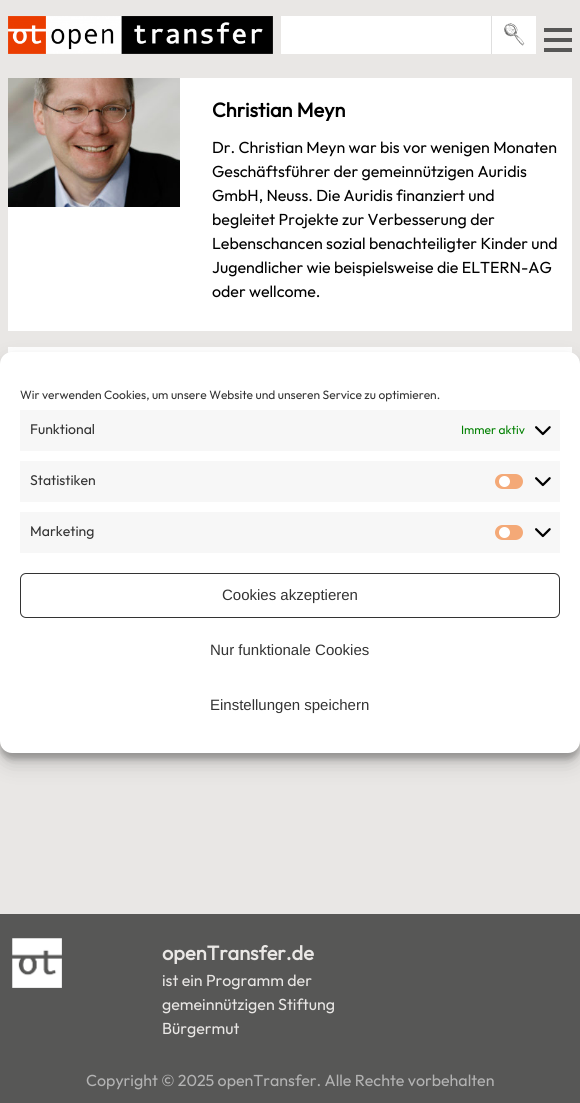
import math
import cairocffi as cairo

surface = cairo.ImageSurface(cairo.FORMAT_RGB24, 580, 1103)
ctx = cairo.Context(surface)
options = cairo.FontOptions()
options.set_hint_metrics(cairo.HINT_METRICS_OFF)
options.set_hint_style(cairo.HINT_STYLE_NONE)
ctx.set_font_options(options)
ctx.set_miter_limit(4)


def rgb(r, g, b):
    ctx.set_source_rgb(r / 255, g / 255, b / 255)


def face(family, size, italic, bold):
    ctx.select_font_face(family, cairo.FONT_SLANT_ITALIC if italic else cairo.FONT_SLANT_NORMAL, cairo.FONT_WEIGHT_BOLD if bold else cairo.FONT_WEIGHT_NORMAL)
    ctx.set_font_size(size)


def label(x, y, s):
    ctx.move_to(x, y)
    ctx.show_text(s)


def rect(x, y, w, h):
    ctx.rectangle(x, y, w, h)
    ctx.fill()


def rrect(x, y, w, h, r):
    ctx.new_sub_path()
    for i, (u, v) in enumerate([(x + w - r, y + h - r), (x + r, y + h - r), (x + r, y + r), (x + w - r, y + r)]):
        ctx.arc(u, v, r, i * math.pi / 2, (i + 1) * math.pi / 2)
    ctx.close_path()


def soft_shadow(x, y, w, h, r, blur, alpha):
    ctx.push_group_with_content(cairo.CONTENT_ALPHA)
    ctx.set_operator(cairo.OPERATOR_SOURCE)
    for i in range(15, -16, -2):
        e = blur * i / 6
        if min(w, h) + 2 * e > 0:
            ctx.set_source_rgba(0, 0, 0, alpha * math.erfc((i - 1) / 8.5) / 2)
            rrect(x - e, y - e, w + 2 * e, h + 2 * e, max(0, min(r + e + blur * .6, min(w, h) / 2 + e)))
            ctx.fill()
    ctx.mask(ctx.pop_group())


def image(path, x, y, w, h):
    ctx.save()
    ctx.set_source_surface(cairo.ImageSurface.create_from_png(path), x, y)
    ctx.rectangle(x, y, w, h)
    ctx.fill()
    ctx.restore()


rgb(233, 231, 229)
ctx.paint()
image('image0.png', 8, 16, 265, 38)
rgb(255, 255, 255)
rect(281, 16, 255, 38)
rgb(223, 223, 223)
rect(491, 16, 1, 38)
image('image1.png', 504, 23, 21, 23)
rgb(87, 87, 86)
rect(544, 28, 28, 4)
rect(544, 38, 28, 4)
rect(544, 48, 28, 4)
rgb(255, 255, 255)
rect(8, 78, 564, 253)
image('image2.png', 8, 78, 172, 129)
face('Outfit', 20, 0, 1)
rgb(0, 0, 0)
label(212, 117, 'Christian Meyn')
face('Outfit Thin', 16, 0, 0)
label(212, 153, 'Dr. Christian Meyn war bis vor wenigen Monaten')
label(212, 177, 'Geschäftsführer der gemeinnützigen Auridis')
label(212, 201, 'GmbH, Neuss. Die Auridis finanziert und')
label(212, 225, 'begleitet Projekte zur Verbesserung der')
label(212, 249, 'Lebenschancen sozial benachteiligter Kinder und')
label(212, 273, 'Jugendlicher wie beispielsweise die ELTERN-AG')
label(212, 297, 'oder wellcome.')
rgb(255, 255, 255)
rect(8, 347, 564, 6)
rgb(87, 87, 86)
rect(0, 914, 580, 189)
image('image3.png', 12, 938, 50, 50)
face('Outfit', 20, 0, 1)
rgb(233, 231, 229)
label(162, 960, 'openTransfer.de')
face('Outfit Thin', 16, 0, 0)
label(162, 986, 'ist ein Programm der')
label(162, 1010, 'gemeinnützigen Stiftung')
label(162, 1034, 'Bürgermut')
rgb(179, 179, 179)
label(86, 1086, 'Copyright © 2025 openTransfer. Alle Rechte vorbehalten')
rgb(0, 0, 0)
soft_shadow(0, 358, 580, 401, 12, 3, 0.23)
soft_shadow(0, 362, 580, 401, 12, 10, 0.19)
rgb(255, 255, 255)
rrect(0, 352, 580, 401, 12)
ctx.fill()
face('Outfit Thin', 12, 0, 0)
rgb(51, 51, 51)
label(20, 399, 'Wir verwenden Cookies, um unsere Website und unseren Service zu optimieren.')
rgb(247, 247, 247)
rect(20, 410, 540, 41)
face('Outfit Thin', 14, 0, 0)
rgb(51, 51, 51)
label(30, 434, 'Funktional')
face('Outfit Thin', 12, 0, 0)
rgb(0, 128, 0)
label(461, 434, 'Immer aktiv')
image('image4.png', 535, 426, 16, 10)
rgb(247, 247, 247)
rect(20, 461, 540, 41)
face('Outfit Thin', 14, 0, 0)
rgb(51, 51, 51)
label(30, 485, 'Statistiken')
rgb(244, 169, 119)
rrect(495, 474, 28, 15, 7.5)
ctx.fill()
rgb(255, 255, 255)
ctx.arc(504.5, 481.5, 5.5, 0, 2 * math.pi)
ctx.fill()
image('image4.png', 535, 477, 16, 10)
rgb(247, 247, 247)
rect(20, 512, 540, 41)
rgb(51, 51, 51)
label(30, 536, 'Marketing')
rgb(244, 169, 119)
rrect(495, 525, 28, 15, 7.5)
ctx.fill()
rgb(255, 255, 255)
ctx.arc(504.5, 532.5, 5.5, 0, 2 * math.pi)
ctx.fill()
image('image4.png', 535, 528, 16, 10)
rrect(20.5, 573.5, 539, 44, 5.5)
rgb(51, 51, 51)
ctx.set_line_width(1)
ctx.stroke()
face('Liberation Sans', 15, 0, 0)
label(222, 600, 'Cookies akzeptieren')
label(210, 655, 'Nur funktionale Cookies')
label(210, 710, 'Einstellungen speichern')
surface.write_to_png('render.png')
